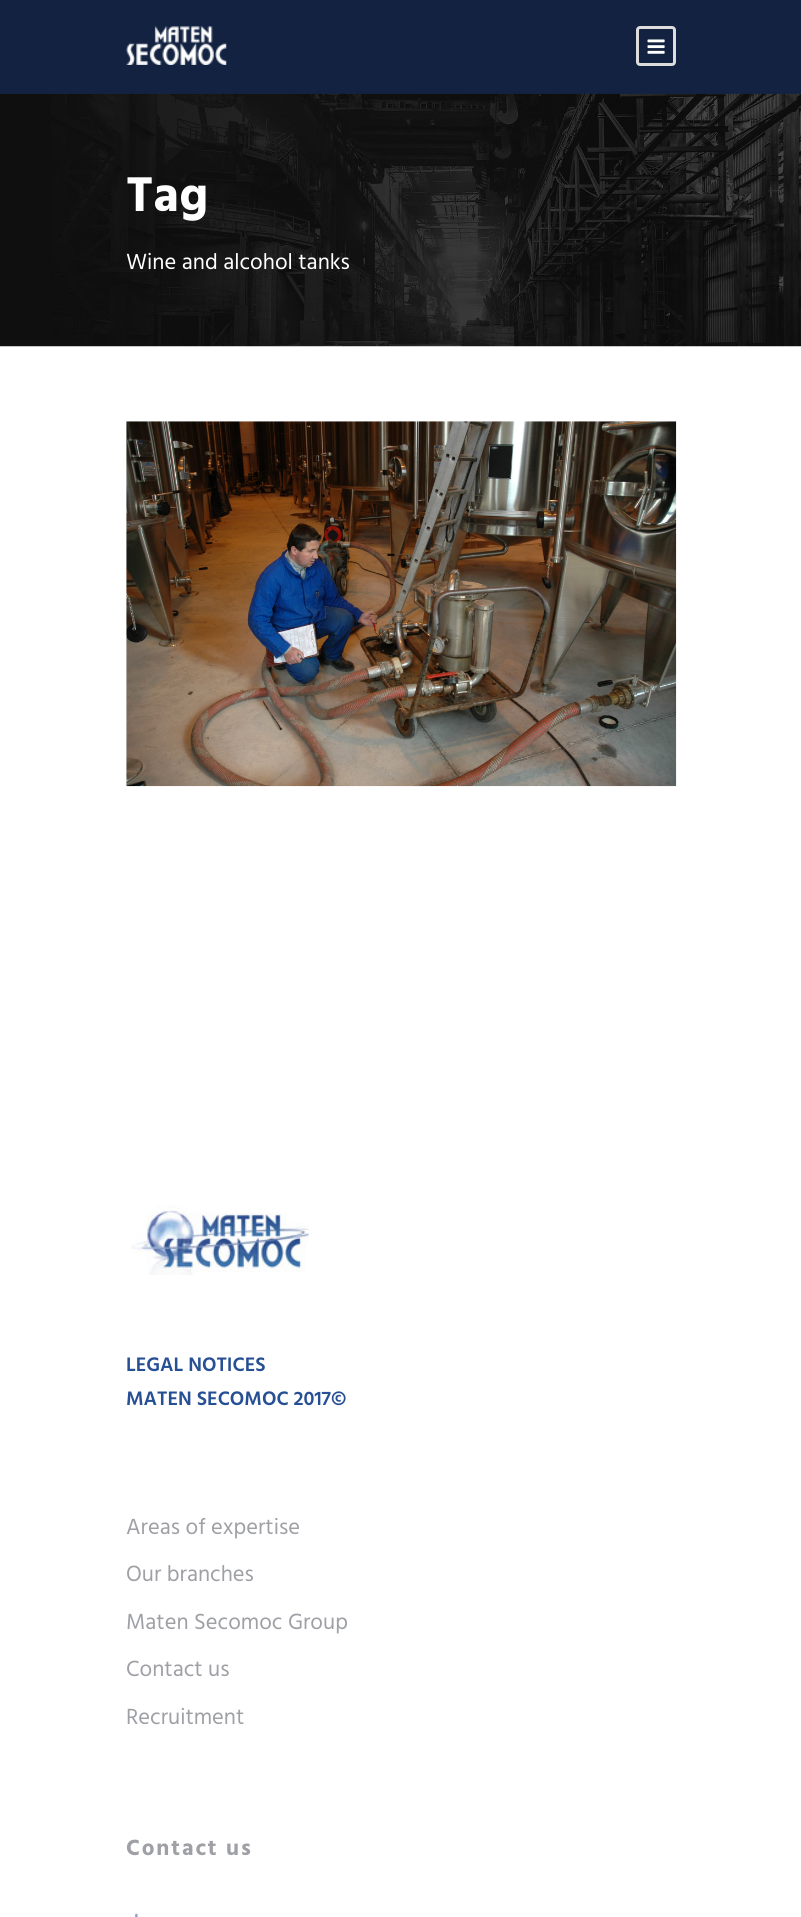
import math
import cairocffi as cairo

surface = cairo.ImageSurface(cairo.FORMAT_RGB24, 801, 1917)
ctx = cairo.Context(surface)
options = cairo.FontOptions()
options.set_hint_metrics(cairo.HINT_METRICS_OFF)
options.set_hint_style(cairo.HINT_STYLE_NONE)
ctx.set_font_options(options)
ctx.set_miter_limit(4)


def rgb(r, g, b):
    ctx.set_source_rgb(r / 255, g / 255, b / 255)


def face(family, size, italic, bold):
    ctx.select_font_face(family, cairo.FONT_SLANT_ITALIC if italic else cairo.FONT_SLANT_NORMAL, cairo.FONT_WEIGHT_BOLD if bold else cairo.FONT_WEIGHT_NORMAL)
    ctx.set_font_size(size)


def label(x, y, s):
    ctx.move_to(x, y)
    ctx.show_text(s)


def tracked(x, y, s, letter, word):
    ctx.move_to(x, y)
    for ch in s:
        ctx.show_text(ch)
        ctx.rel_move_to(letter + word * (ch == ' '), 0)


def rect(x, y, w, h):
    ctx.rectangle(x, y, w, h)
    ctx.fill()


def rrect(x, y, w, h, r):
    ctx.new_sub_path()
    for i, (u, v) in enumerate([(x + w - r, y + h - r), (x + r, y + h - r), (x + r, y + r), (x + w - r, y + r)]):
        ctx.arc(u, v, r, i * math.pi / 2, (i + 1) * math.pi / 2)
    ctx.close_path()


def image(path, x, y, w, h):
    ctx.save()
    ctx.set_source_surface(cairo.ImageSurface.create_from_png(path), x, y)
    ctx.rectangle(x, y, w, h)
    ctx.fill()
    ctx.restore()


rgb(18, 34, 64)
ctx.paint()
image('image0.png', 126, 26, 101, 39)
rrect(637.5, 27.5, 37, 37, 2.5)
rgb(221, 221, 221)
ctx.set_line_width(3)
ctx.stroke()
image('image1.png', 647, 39, 18, 15)
rgb(255, 255, 255)
rect(0, 346, 801, 1571)
image('image2.png', 0, 93, 801, 254)
face('Hind', 50, 0, 1)
label(126, 211, 'Tag')
face('Hind', 22.5, 0, 0)
label(126, 269, 'Wine and alcohol tanks')
image('image3.png', 126, 421, 551, 366)
image('image4.png', 131, 1205, 178, 70)
face('Hind SemiBold', 20, 0, 0)
rgb(39, 79, 148)
label(126, 1371, 'LEGAL NOTICES')
label(126, 1405, 'MATEN SECOMOC 2017©')
face('Hind', 22.5, 0, 0)
rgb(159, 160, 165)
label(126, 1534, 'Areas of expertise')
label(126, 1581, 'Our branches')
label(126, 1629, 'Maten Secomoc Group')
label(126, 1676, 'Contact us')
label(126, 1724, 'Recruitment')
face('Hind', 22.5, 0, 1)
tracked(126, 1855, 'Contact us', 1.9, 0)
image('image5.png', 134, 1913, 4, 4)
surface.write_to_png('render.png')
